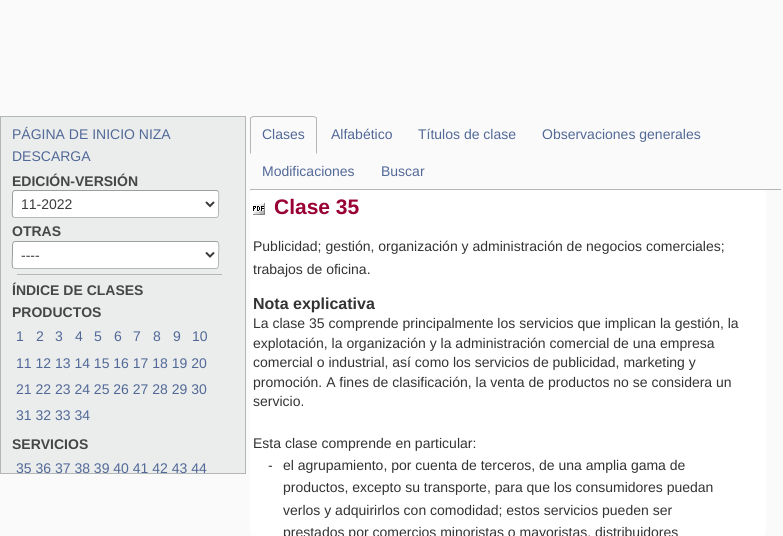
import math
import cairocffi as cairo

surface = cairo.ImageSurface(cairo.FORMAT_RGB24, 783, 536)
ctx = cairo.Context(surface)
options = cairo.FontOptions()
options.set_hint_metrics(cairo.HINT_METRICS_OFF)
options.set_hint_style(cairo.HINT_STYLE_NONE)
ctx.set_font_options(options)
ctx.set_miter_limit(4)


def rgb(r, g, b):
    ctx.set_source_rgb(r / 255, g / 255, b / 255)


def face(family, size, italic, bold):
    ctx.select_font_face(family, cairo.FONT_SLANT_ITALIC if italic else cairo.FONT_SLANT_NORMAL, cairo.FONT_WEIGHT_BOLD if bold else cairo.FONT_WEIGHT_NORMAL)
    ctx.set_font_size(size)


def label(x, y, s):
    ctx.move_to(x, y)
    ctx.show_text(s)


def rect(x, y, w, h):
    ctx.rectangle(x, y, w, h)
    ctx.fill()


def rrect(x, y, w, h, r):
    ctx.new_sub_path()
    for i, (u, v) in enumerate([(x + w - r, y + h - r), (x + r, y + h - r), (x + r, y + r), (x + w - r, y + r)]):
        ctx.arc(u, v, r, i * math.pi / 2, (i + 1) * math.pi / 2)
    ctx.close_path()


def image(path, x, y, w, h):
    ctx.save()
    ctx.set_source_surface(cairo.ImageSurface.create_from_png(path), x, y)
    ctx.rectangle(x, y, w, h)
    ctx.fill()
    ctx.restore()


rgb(250, 250, 250)
ctx.paint()
rgb(234, 237, 236)
ctx.rectangle(0.5, 116.5, 245, 357)
ctx.fill_preserve()
rgb(180, 183, 182)
ctx.set_line_width(1)
ctx.stroke()
face('Liberation Sans', 14, 0, 0)
rgb(82, 104, 151)
label(12, 139, 'PÁGINA DE INICIO NIZA')
label(12, 161, 'DESCARGA')
face('Liberation Sans', 14, 0, 1)
rgb(70, 70, 70)
label(12, 186, 'EDICIÓN-VERSIÓN')
rgb(255, 255, 255)
rrect(12, 190, 207, 28, 3)
ctx.fill()
ctx.new_path()
ctx.move_to(218, 191)
ctx.curve_to(219.5, 193, 218.5, 201.5, 218.5, 204)
ctx.line_to(218.5, 211.5)
ctx.curve_to(218.5, 213, 219, 217.5, 216, 217.5)
ctx.line_to(15, 217.5)
ctx.line_to(13, 217)
rgb(180, 183, 182)
ctx.stroke()
ctx.new_path()
ctx.move_to(13, 217)
ctx.curve_to(11.5, 215, 12.5, 206.5, 12.5, 204)
ctx.line_to(12.5, 196.5)
ctx.curve_to(12.5, 195, 12, 190.5, 15, 190.5)
ctx.line_to(216, 190.5)
ctx.line_to(218, 191)
rgb(154, 158, 157)
ctx.stroke()
ctx.new_path()
ctx.move_to(206, 202)
ctx.line_to(210, 206)
ctx.line_to(214, 202)
rgb(59, 59, 59)
ctx.set_line_width(2)
ctx.stroke()
face('Liberation Sans', 14, 0, 0)
label(21, 209, '11-2022')
face('Liberation Sans', 14, 0, 1)
rgb(70, 70, 70)
label(12, 236, 'OTRAS')
rgb(255, 255, 255)
rrect(12, 241, 207, 28, 3)
ctx.fill()
ctx.new_path()
ctx.move_to(218, 242)
ctx.curve_to(219.5, 244, 218.5, 252.5, 218.5, 255)
ctx.line_to(218.5, 262.5)
ctx.curve_to(218.5, 264, 219, 268.5, 216, 268.5)
ctx.line_to(15, 268.5)
ctx.line_to(13, 268)
rgb(180, 183, 182)
ctx.set_line_width(1)
ctx.stroke()
ctx.new_path()
ctx.move_to(13, 268)
ctx.curve_to(11.5, 266, 12.5, 257.5, 12.5, 255)
ctx.line_to(12.5, 247.5)
ctx.curve_to(12.5, 246, 12, 241.5, 15, 241.5)
ctx.line_to(216, 241.5)
ctx.line_to(218, 242)
rgb(154, 158, 157)
ctx.stroke()
ctx.new_path()
ctx.move_to(206, 252.5)
ctx.line_to(210, 256.5)
ctx.line_to(214, 252.5)
rgb(59, 59, 59)
ctx.set_line_width(2)
ctx.stroke()
face('Liberation Sans', 14, 0, 0)
label(21, 260, '----')
rgb(180, 183, 182)
rect(17, 274, 205, 1)
face('Liberation Sans', 14, 0, 1)
rgb(70, 70, 70)
label(12, 295, 'ÍNDICE DE CLASES')
label(12, 317, 'PRODUCTOS')
face('Liberation Sans', 14, 0, 0)
rgb(82, 104, 151)
label(16, 341, '1')
label(36, 341, '2')
label(55, 341, '3')
label(75, 341, '4')
label(94, 341, '5')
label(114, 341, '6')
label(133, 341, '7')
label(153, 341, '8')
label(173, 341, '9')
label(192, 341, '10')
label(16, 368, '11 12 13 14 15 16 17 18 19 20')
label(16, 394, '21 22 23 24 25 26 27 28 29 30')
label(16, 420, '31 32 33 34')
face('Liberation Sans', 14, 0, 1)
rgb(70, 70, 70)
label(12, 449, 'SERVICIOS')
face('Liberation Sans', 14, 0, 0)
rgb(82, 104, 151)
label(16, 473, '35 36 37 38 39 40 41 42 43 44')
rgb(180, 183, 182)
rect(250, 189, 531, 1)
ctx.new_path()
ctx.move_to(253, 116)
ctx.line_to(251, 117)
ctx.line_to(252, 118)
ctx.line_to(253, 117)
ctx.line_to(314, 117)
ctx.line_to(315, 118)
ctx.line_to(316, 117)
ctx.line_to(314, 116)
ctx.close_path()
ctx.fill()
ctx.new_path()
ctx.move_to(317, 154)
ctx.line_to(317, 119)
ctx.curve_to(317, 118, 317, 117, 316, 117)
ctx.line_to(315.5, 117.5)
ctx.line_to(316, 119)
ctx.line_to(316, 153)
ctx.close_path()
ctx.fill()
ctx.new_path()
ctx.move_to(250, 154)
ctx.line_to(251, 153)
ctx.line_to(251, 119)
ctx.line_to(251.5, 117.5)
ctx.line_to(251, 117)
ctx.curve_to(250, 117, 250, 118, 250, 119)
ctx.close_path()
ctx.fill()
rgb(82, 104, 151)
label(262, 139, 'Clases')
label(331, 139, 'Alfabético')
label(418, 139, 'Títulos de clase')
label(542, 139, 'Observaciones generales')
label(262, 176, 'Modificaciones')
label(381, 176, 'Buscar')
rgb(255, 255, 255)
rrect(250, 190, 516, 346, 4)
ctx.fill()
image('image0.png', 253, 203, 12, 12)
face('Liberation Sans', 21, 0, 1)
rgb(153, 0, 51)
label(274, 214, 'Clase 35')
face('Liberation Sans', 14, 0, 0)
rgb(51, 51, 51)
label(253, 251, 'Publicidad; gestión, organización y administración de negocios comerciales;')
label(253, 274, 'trabajos de oficina.')
face('Liberation Sans', 16, 0, 1)
label(253, 309, 'Nota explicativa')
face('Liberation Sans', 14, 0, 0)
label(253, 328, 'La clase 35 comprende principalmente los servicios que implican la gestión, la')
label(253, 348, 'explotación, la organización y la administración comercial de una empresa')
label(253, 367, 'comercial o industrial, así como los servicios de publicidad, marketing y')
label(253, 387, 'promoción. A fines de clasificación, la venta de productos no se considera un')
label(253, 406, 'servicio.')
label(253, 448, 'Esta clase comprende en particular:')
label(268, 470, '-')
label(283, 470, 'el agrupamiento, por cuenta de terceros, de una amplia gama de')
label(283, 492, 'productos, excepto su transporte, para que los consumidores puedan')
label(283, 515, 'verlos y adquirirlos con comodidad; estos servicios pueden ser')
label(283, 537, 'prestados por comercios minoristas o mayoristas, distribuidores')
surface.write_to_png('render.png')
